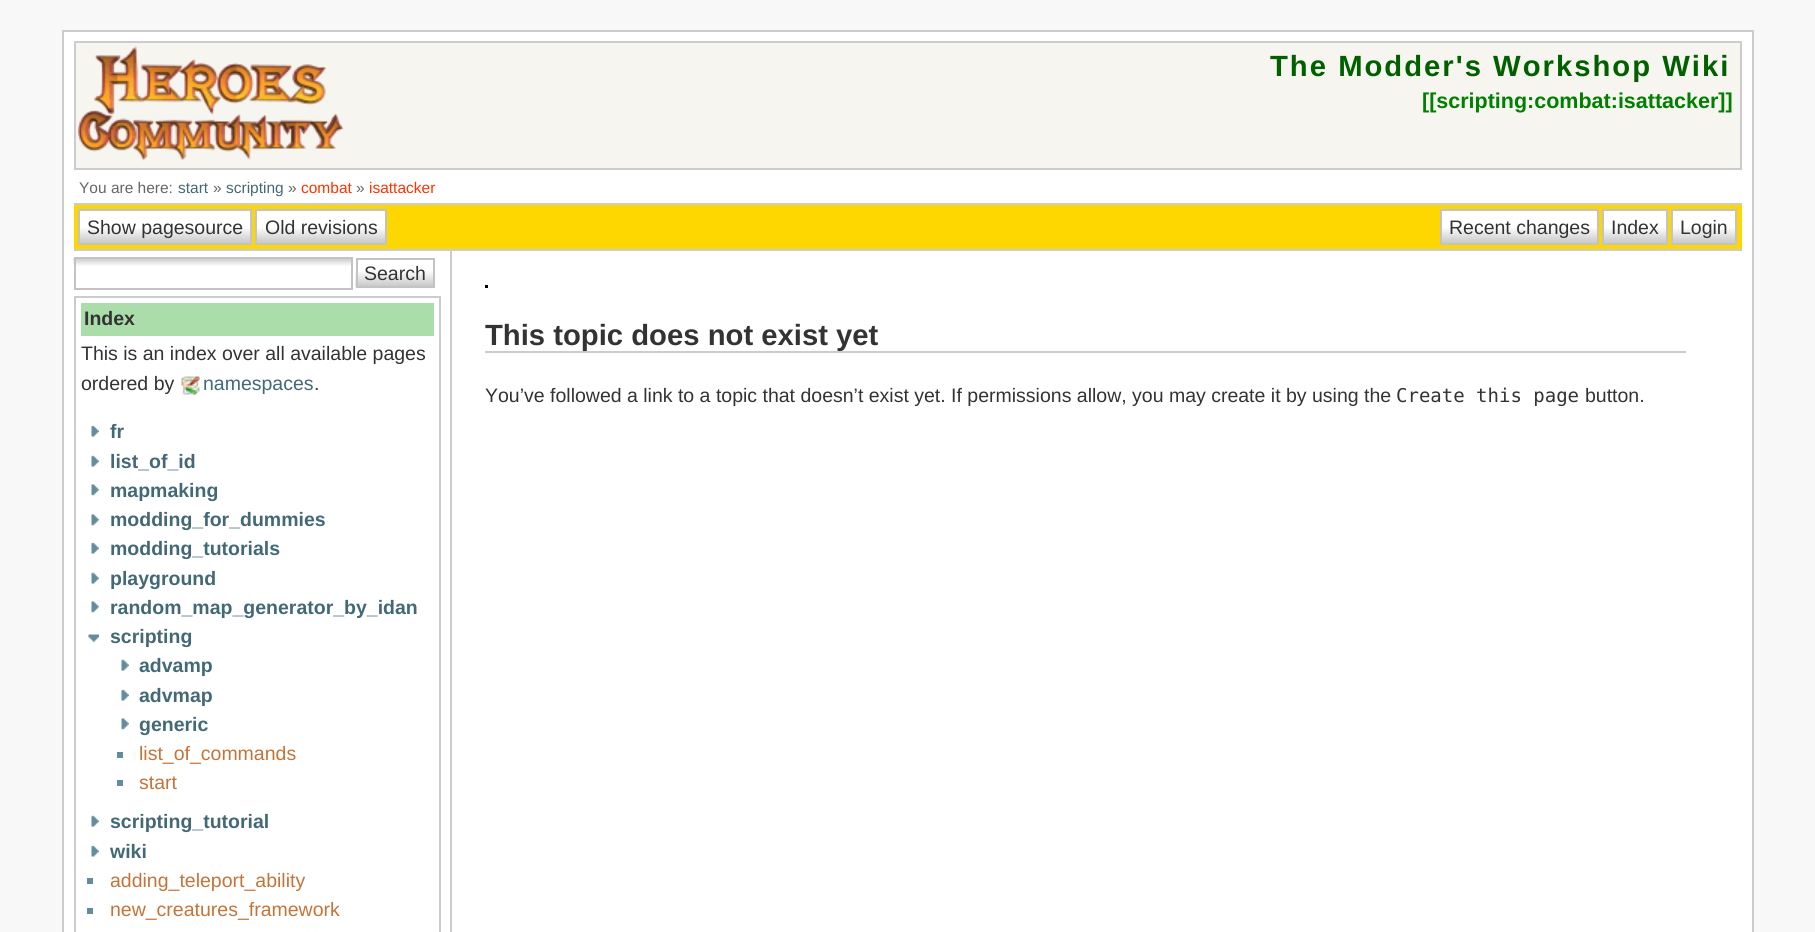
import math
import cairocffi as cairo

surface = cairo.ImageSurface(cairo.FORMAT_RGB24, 1815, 932)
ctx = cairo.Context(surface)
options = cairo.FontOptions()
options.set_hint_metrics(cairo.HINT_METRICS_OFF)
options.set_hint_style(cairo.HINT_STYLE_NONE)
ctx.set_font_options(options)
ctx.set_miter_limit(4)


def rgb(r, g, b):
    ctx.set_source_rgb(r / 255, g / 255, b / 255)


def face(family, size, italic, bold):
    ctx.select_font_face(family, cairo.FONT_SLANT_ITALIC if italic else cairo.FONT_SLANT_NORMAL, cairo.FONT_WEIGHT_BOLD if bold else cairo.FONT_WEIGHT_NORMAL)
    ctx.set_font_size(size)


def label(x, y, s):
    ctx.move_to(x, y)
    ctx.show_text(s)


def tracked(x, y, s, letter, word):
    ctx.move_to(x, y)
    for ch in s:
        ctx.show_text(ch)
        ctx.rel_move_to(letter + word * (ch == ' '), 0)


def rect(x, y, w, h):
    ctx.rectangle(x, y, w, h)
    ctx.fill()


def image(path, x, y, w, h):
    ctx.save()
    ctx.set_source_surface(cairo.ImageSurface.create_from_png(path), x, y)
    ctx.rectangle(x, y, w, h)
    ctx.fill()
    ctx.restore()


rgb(248, 248, 248)
ctx.paint()
rgb(255, 255, 255)
ctx.rectangle(63, 31, 1690, 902)
ctx.fill_preserve()
rgb(204, 204, 204)
ctx.stroke()
rgb(247, 245, 240)
ctx.rectangle(75, 42, 1666, 127)
ctx.fill_preserve()
rgb(204, 204, 204)
ctx.stroke()
image('image0.png', 78, 46, 266, 115)
face('Liberation Sans', 29.25, 0, 1)
rgb(0, 96, 0)
tracked(1270, 76, 'The Modder\'s Workshop Wiki', 2, 0)
face('Liberation Sans', 21.5, 0, 1)
rgb(0, 128, 0)
label(1422, 108, '[[scripting:combat:isattacker]]')
face('Liberation Sans', 15.5, 0, 0)
rgb(102, 102, 102)
label(79, 193, 'You are here:')
rgb(67, 105, 118)
label(178, 193, 'start')
rgb(102, 102, 102)
label(213, 193, '»')
rgb(67, 105, 118)
label(226, 193, 'scripting')
rgb(102, 102, 102)
label(288, 193, '»')
rgb(255, 51, 0)
label(301, 193, 'combat')
rgb(102, 102, 102)
label(356, 193, '»')
rgb(255, 51, 0)
label(369, 193, 'isattacker')
rgb(255, 215, 0)
rect(74, 205, 1668, 44)
rgb(204, 204, 204)
rect(74, 203, 1668, 2)
rect(74, 249, 1668, 2)
rgb(255, 255, 255)
rect(80, 211, 170, 31)
image('image1.png', 80, 228, 170, 15)
ctx.rectangle(79, 210, 172, 34)
rgb(195, 195, 195)
ctx.stroke()
face('Liberation Sans', 19.5, 0, 0)
rgb(51, 51, 51)
label(87, 234, 'Show pagesource')
rgb(255, 255, 255)
rect(257, 211, 128, 31)
image('image2.png', 257, 228, 128, 15)
ctx.rectangle(256, 210, 130, 34)
rgb(195, 195, 195)
ctx.stroke()
rgb(51, 51, 51)
label(265, 234, 'Old revisions')
rgb(255, 255, 255)
rect(1442, 211, 155, 31)
image('image3.png', 1442, 228, 155, 15)
ctx.rectangle(1441, 210, 157, 34)
rgb(195, 195, 195)
ctx.stroke()
rgb(51, 51, 51)
label(1449, 234, 'Recent changes')
rgb(255, 255, 255)
rect(1604, 211, 62, 31)
image('image4.png', 1604, 228, 62, 15)
ctx.rectangle(1603, 210, 64, 34)
rgb(195, 195, 195)
ctx.stroke()
rgb(51, 51, 51)
label(1611, 234, 'Index')
rgb(255, 255, 255)
rect(1673, 211, 62, 31)
image('image4.png', 1673, 228, 62, 15)
ctx.rectangle(1672, 210, 64, 34)
rgb(195, 195, 195)
ctx.stroke()
rgb(51, 51, 51)
label(1680, 234, 'Login')
rgb(204, 204, 204)
rect(450, 251, 2, 681)
image('image5.png', 73, 258, 278, 8)
ctx.rectangle(75, 258, 277, 31)
rgb(195, 195, 195)
ctx.stroke()
image('image6.png', 355, 271, 78, 16)
ctx.rectangle(357, 259, 77, 28)
ctx.stroke()
rgb(51, 51, 51)
label(364, 280, 'Search')
ctx.rectangle(75, 297, 365, 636)
rgb(204, 204, 204)
ctx.stroke()
rgb(170, 221, 170)
rect(81, 303, 353, 33)
face('Liberation Sans', 19.5, 0, 1)
rgb(51, 51, 51)
label(84, 325, 'Index')
face('Liberation Sans', 19.5, 0, 0)
label(81, 360, 'This is an index over all available pages')
label(81, 390, 'ordered by')
image('image7.png', 181, 376, 19, 19)
rgb(67, 105, 118)
label(203, 390, 'namespaces')
rgb(51, 51, 51)
label(314, 390, '.')
image('image8.png', 91, 425, 8, 12)
face('Liberation Sans', 19.5, 0, 1)
rgb(67, 105, 118)
label(110, 438, 'fr')
image('image8.png', 91, 455, 8, 12)
label(110, 468, 'list_of_id')
image('image9.png', 91, 484, 8, 12)
label(110, 497, 'mapmaking')
image('image9.png', 91, 514, 8, 12)
label(110, 526, 'modding_for_dummies')
image('image8.png', 91, 542, 8, 12)
label(110, 555, 'modding_tutorials')
image('image8.png', 91, 572, 8, 12)
label(110, 585, 'playground')
image('image9.png', 91, 601, 8, 12)
label(110, 614, 'random_map_generator_by_idan')
image('image10.png', 88, 634, 11, 9)
label(110, 643, 'scripting')
image('image8.png', 121, 659, 8, 12)
label(139, 672, 'advamp')
image('image8.png', 121, 689, 8, 12)
label(139, 702, 'advmap')
image('image9.png', 121, 718, 8, 12)
label(139, 731, 'generic')
rgb(99, 140, 156)
rect(117, 752, 6, 6)
face('Liberation Sans', 19.5, 0, 0)
rgb(195, 116, 57)
label(139, 760, 'list_of_commands')
rgb(99, 140, 156)
rect(117, 780, 6, 6)
rgb(195, 116, 57)
label(139, 789, 'start')
image('image8.png', 91, 815, 8, 12)
face('Liberation Sans', 19.5, 0, 1)
rgb(67, 105, 118)
label(110, 828, 'scripting_tutorial')
image('image8.png', 91, 845, 8, 12)
label(110, 858, 'wiki')
rgb(99, 140, 156)
rect(87, 878, 6, 6)
face('Liberation Sans', 19.5, 0, 0)
rgb(195, 116, 57)
label(110, 887, 'adding_teleport_ability')
rgb(99, 140, 156)
rect(87, 908, 6, 6)
rgb(195, 116, 57)
label(110, 916, 'new_creatures_framework')
rgb(0, 0, 0)
rect(485, 285, 3, 3)
rgb(204, 204, 204)
rect(485, 351, 1201, 2)
face('Liberation Sans', 29.25, 0, 1)
rgb(51, 51, 51)
label(485, 345, 'This topic does not exist yet')
face('Liberation Sans', 19.5, 0, 0)
label(485, 402, 'You’ve followed a link to a topic that doesn’t exist yet. If permissions allow, you may create it by using the')
face('DejaVu Sans Mono', 19, 0, 0)
label(1396, 402, 'Create this page')
face('Liberation Sans', 19.5, 0, 0)
label(1585, 402, 'button.')
surface.write_to_png('render.png')
